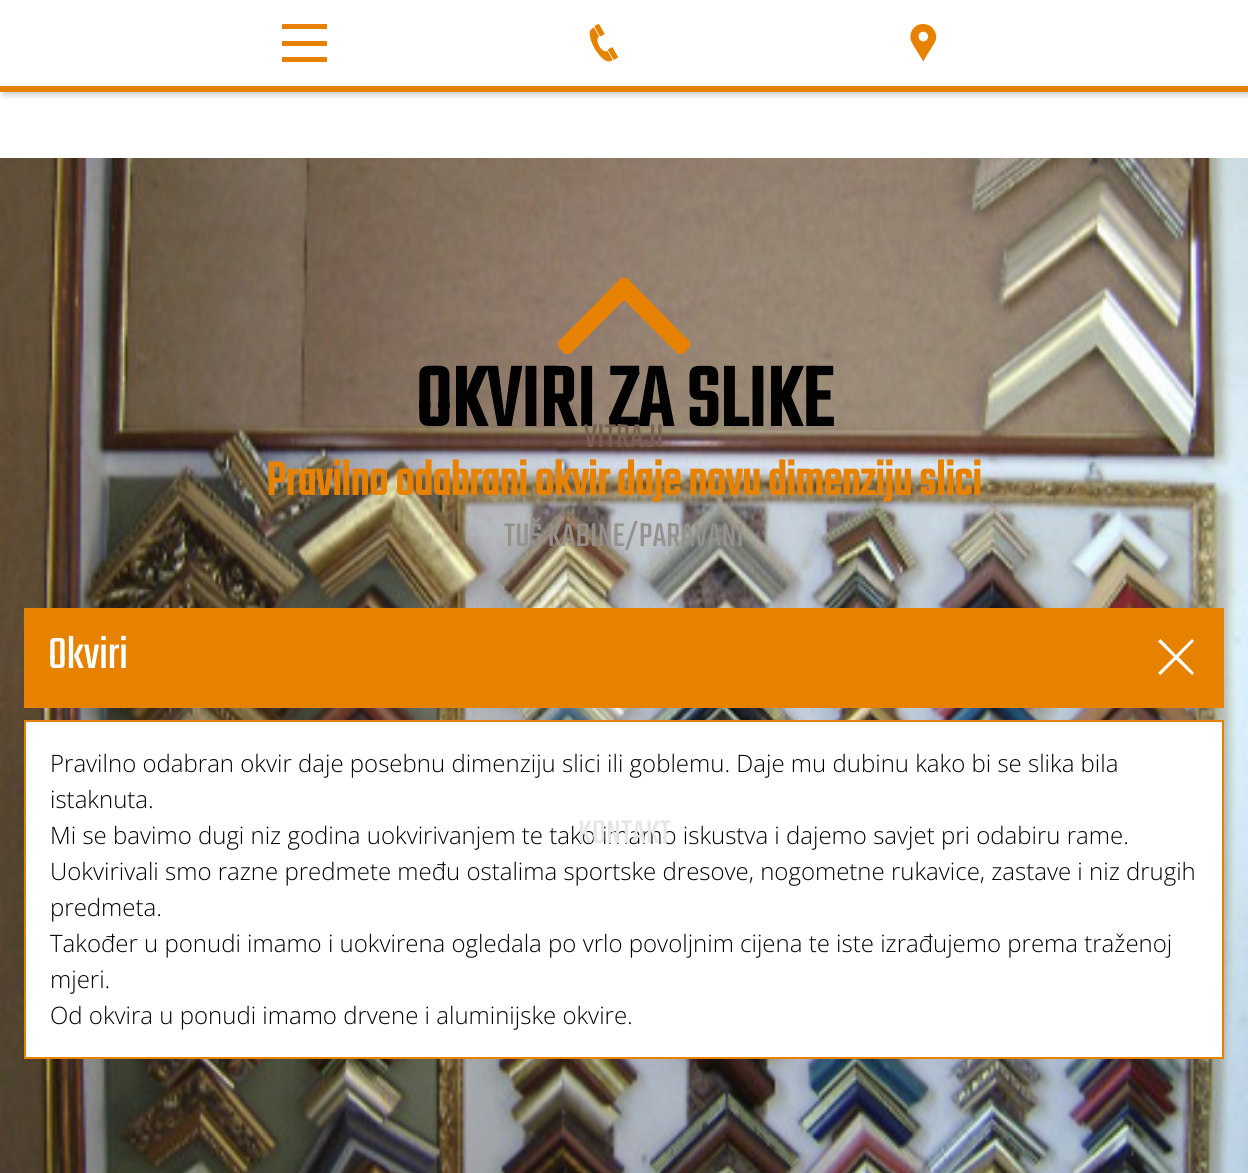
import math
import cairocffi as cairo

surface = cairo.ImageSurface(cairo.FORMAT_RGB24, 1248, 1173)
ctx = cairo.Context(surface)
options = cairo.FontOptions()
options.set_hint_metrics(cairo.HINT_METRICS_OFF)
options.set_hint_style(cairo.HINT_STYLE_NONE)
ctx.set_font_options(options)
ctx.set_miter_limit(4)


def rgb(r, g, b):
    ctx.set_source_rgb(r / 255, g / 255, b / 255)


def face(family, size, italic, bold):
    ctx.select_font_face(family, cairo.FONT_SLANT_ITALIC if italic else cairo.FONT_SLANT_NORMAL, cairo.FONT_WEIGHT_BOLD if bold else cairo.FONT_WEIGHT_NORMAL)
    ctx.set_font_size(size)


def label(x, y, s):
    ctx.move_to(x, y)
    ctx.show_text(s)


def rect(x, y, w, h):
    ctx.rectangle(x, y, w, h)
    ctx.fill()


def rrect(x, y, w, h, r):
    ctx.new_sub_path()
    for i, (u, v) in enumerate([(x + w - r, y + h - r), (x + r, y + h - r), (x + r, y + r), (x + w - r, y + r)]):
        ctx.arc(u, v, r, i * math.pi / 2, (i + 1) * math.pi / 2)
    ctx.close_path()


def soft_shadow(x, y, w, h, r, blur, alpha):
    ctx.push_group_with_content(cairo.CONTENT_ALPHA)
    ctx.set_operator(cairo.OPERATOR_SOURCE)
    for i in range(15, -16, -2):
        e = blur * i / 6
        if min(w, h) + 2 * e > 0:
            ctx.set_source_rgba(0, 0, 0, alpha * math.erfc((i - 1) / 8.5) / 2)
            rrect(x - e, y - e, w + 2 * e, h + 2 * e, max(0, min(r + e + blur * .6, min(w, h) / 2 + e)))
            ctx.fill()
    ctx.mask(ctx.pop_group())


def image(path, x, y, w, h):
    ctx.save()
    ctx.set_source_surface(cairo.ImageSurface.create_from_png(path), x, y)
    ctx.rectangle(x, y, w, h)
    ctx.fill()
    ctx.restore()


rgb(255, 255, 255)
ctx.paint()
image('image0.png', 0, 158, 1248, 1015)
ctx.save()
ctx.rectangle(558, 278, 132, 76)
ctx.clip()
rgb(231, 130, 0)
ctx.new_path()
ctx.move_to(628, 279)
ctx.line_to(688, 340)
ctx.curve_to(691, 342, 691, 346, 688, 349)
ctx.line_to(685, 352)
ctx.curve_to(682, 355, 678, 355, 676, 352)
ctx.line_to(624, 300)
ctx.line_to(572, 352)
ctx.curve_to(570, 355, 566, 355, 563, 352)
ctx.line_to(560, 349)
ctx.curve_to(557, 346, 557, 342, 560, 340)
ctx.line_to(620, 279)
ctx.curve_to(622, 277, 626, 277, 628, 279)
ctx.close_path()
ctx.fill()
ctx.restore()
face('Teko', 92, 0, 1)
rgb(2, 2, 2)
label(415, 426, 'OKVIRI ZA SLIKE')
face('Teko', 51, 0, 1)
rgb(231, 130, 0)
label(266, 495, 'Pravilno odabrani okvir daje novu dimenziju slici')
rect(24, 608, 1200, 100)
face('Teko Light', 48, 0, 0)
rgb(255, 255, 255)
label(48, 668, 'Okviri')
ctx.new_path()
ctx.move_to(1192, 675)
ctx.line_to(1194, 673)
ctx.line_to(1178.5, 657)
ctx.line_to(1194, 641)
ctx.line_to(1192, 639)
ctx.line_to(1176, 655)
ctx.line_to(1160.5, 639)
ctx.line_to(1158, 641.5)
ctx.line_to(1174, 657)
ctx.line_to(1158, 673)
ctx.line_to(1160.5, 675)
ctx.line_to(1176, 659.5)
ctx.close_path()
ctx.fill()
ctx.rectangle(25, 721, 1198, 337)
ctx.fill_preserve()
rgb(231, 130, 0)
ctx.stroke()
face('Open Sans Light', 24, 0, 0)
rgb(2, 2, 2)
label(50, 772, 'Pravilno odabran okvir daje posebnu dimenziju slici ili goblemu. Daje mu dubinu kako bi se slika bila')
label(50, 808, 'istaknuta.')
label(50, 844, 'Mi se bavimo dugi niz godina uokvirivanjem te tako imamo iskustva i dajemo savjet pri odabiru rame.')
label(50, 880, 'Uokvirivali smo razne predmete među ostalima sportske dresove, nogometne rukavice, zastave i niz drugih')
label(50, 916, 'predmeta.')
label(50, 952, 'Također u ponudi imamo i uokvirena ogledala po vrlo povoljnim cijena te iste izrađujemo prema traženoj')
label(50, 988, 'mjeri.')
label(50, 1024, 'Od okvira u ponudi imamo drvene i aluminijske okvire.')
ctx.save()
ctx.rectangle(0, 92, 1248, 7)
ctx.clip()
rgb(0, 0, 0)
soft_shadow(3, 3, 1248, 92, 0, 3, 0.2)
ctx.restore()
rgb(231, 130, 0)
rect(0, 86, 1248, 6)
rect(282, 24, 45, 5)
rect(282, 41, 45, 5)
rect(282, 57, 45, 5)
image('image1.png', 589, 24, 29, 38)
image('image2.png', 910, 24, 27, 38)
face('Teko Light', 36, 0, 0)
rgb(119, 96, 82)
label(584, 447, 'VITRAJI')
rgb(149, 145, 141)
label(504, 546, 'TUŠ KABINE/PARAVANI')
rgb(230, 230, 230)
label(578, 843, 'KONTAKT')
surface.write_to_png('render.png')
